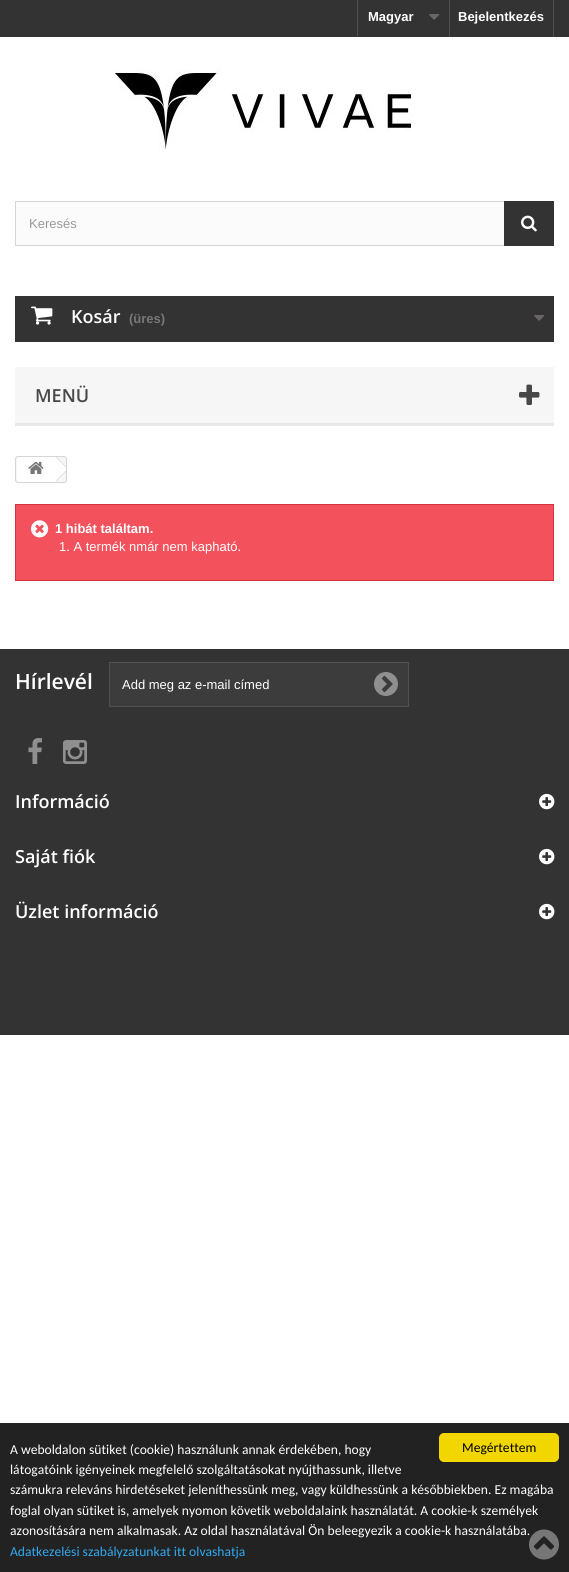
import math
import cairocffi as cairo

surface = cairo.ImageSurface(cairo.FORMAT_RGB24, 569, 1572)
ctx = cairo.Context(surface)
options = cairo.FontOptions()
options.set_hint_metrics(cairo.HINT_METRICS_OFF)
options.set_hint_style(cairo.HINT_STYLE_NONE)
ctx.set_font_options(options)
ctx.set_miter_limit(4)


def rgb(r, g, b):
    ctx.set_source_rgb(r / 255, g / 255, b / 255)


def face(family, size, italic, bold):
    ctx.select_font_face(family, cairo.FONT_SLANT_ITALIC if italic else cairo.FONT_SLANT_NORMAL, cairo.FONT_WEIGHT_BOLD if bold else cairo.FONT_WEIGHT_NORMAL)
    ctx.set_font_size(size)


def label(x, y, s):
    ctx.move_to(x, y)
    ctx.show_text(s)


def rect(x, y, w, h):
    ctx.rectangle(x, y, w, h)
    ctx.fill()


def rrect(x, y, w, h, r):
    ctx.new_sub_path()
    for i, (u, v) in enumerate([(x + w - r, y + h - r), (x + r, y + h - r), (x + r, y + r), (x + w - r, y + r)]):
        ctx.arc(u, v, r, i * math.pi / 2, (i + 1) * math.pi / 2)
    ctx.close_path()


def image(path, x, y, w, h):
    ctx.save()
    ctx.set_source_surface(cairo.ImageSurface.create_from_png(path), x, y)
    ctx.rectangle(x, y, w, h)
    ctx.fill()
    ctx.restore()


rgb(255, 255, 255)
ctx.paint()
rgb(51, 51, 51)
rect(0, 0, 569, 37)
rgb(81, 81, 81)
rect(357, 0, 1, 36)
face('Liberation Sans', 13, 0, 1)
rgb(255, 255, 255)
label(368, 21, 'Magyar')
image('image0.png', 429, 14, 11, 6)
rgb(81, 81, 81)
rect(553, 0, 1, 37)
rect(449, 0, 1, 37)
rgb(255, 255, 255)
label(458, 21, 'Bejelentkezés')
image('image1.png', 111, 68, 303, 82)
rgb(251, 251, 251)
rect(16, 202, 488, 43)
ctx.rectangle(15.5, 201.5, 538, 44)
rgb(214, 212, 212)
ctx.set_line_width(1)
ctx.stroke()
face('Liberation Sans', 13, 0, 0)
rgb(153, 153, 153)
label(29, 228, 'Keresés')
rgb(51, 51, 51)
rect(504, 201, 50, 45)
image('image2.png', 521, 215, 16, 17)
rect(15, 296, 539, 46)
image('image3.png', 31, 306, 22, 19)
face('Open Sans SemiBold', 18, 0, 0)
rgb(255, 255, 255)
label(71, 323, 'Kosár')
face('Liberation Sans', 13, 0, 1)
rgb(119, 119, 119)
label(129, 323, '(üres)')
image('image0.png', 534, 315, 11, 6)
rgb(246, 246, 246)
rect(15, 367, 539, 56)
rgb(233, 233, 233)
rect(15, 423, 539, 3)
face('Open Sans SemiBold', 18, 0, 0)
rgb(72, 72, 72)
label(35, 402, 'MENÜ')
image('image4.png', 519, 384, 21, 21)
rgb(246, 246, 246)
rrect(15.5, 456.5, 51, 26, 2.5)
ctx.fill_preserve()
rgb(214, 212, 212)
ctx.stroke()
rgb(255, 255, 255)
ctx.new_path()
ctx.move_to(20, 457)
ctx.line_to(55, 457)
ctx.line_to(55, 482)
ctx.line_to(20, 482)
ctx.curve_to(18.5, 482, 17, 480.5, 17, 479)
ctx.line_to(17, 460)
ctx.curve_to(17, 458.5, 18.5, 457, 20, 457)
ctx.close_path()
ctx.fill()
image('image5.png', 28, 461, 16, 13)
ctx.new_path()
ctx.move_to(57.5, 457.5)
ctx.line_to(66, 466)
ctx.line_to(66, 472)
ctx.line_to(57.5, 480.5)
ctx.curve_to(56.5, 481, 55.5, 481, 54.5, 480.5)
ctx.line_to(44.5, 470.5)
ctx.curve_to(44, 469.5, 44, 468.5, 44.5, 467.5)
ctx.line_to(54.5, 457.5)
ctx.curve_to(55.5, 457, 56.5, 457, 57.5, 457.5)
ctx.close_path()
ctx.fill()
rgb(214, 212, 212)
ctx.new_path()
ctx.move_to(56.5, 457)
ctx.line_to(66, 466.5)
ctx.line_to(66, 467.5)
ctx.line_to(56, 457.5)
ctx.close_path()
ctx.move_to(66, 470.5)
ctx.line_to(66, 471.5)
ctx.line_to(56.5, 481)
ctx.line_to(56, 480.5)
ctx.close_path()
ctx.fill()
rgb(243, 81, 92)
ctx.rectangle(15.5, 504.5, 538, 76)
ctx.fill_preserve()
rgb(212, 50, 61)
ctx.stroke()
image('image6.png', 31, 520, 18, 18)
face('Liberation Sans', 13, 0, 1)
rgb(255, 255, 255)
label(55, 533, '1 hibát találtam.')
face('Liberation Sans', 13, 0, 0)
label(59, 551, '1. A termék nmár nem kapható.')
rgb(51, 51, 51)
rect(0, 649, 569, 386)
face('Open Sans SemiBold', 21, 0, 0)
rgb(255, 255, 255)
label(15, 689, 'Hírlevél')
rgb(60, 60, 60)
ctx.rectangle(109.5, 662.5, 299, 44)
ctx.fill_preserve()
rgb(81, 81, 81)
ctx.stroke()
face('Liberation Sans', 13, 0, 0)
rgb(255, 255, 255)
label(122, 689, 'Add meg az e-mail címed')
image('image7.png', 374, 672, 24, 24)
image('image8.png', 28, 738, 14, 26)
image('image9.png', 63, 740, 24, 24)
face('Open Sans SemiBold', 18, 0, 0)
label(15, 808, 'Információ')
image('image10.png', 539, 793, 16, 17)
label(15, 863, 'Saját fiók')
image('image10.png', 539, 848, 16, 17)
label(15, 918, 'Üzlet információ')
image('image10.png', 539, 903, 16, 17)
rgb(34, 34, 34)
rect(0, 1423, 569, 149)
rgb(241, 214, 0)
rrect(439, 1433, 120, 29, 5)
ctx.fill()
face('Carlito', 13.6, 0, 0)
rgb(0, 0, 0)
label(462, 1452, 'Megértettem')
rgb(255, 255, 255)
label(10, 1454, 'A weboldalon sütiket (cookie) használunk annak érdekében, hogy')
label(10, 1474, 'látogatóink igényeinek megfelelő szolgáltatásokat nyújthassunk, illetve')
label(10, 1494, 'számukra releváns hirdetéseket jeleníthessünk meg, vagy küldhessünk a későbbiekben. Ez magába')
label(10, 1515, 'foglal olyan sütiket is, amelyek nyomon követik weboldalaink használatát. A cookie-k személyek')
label(10, 1535, 'azonosítására nem alkalmasak. Az oldal használatával Ön beleegyezik a cookie-k használatába.')
rgb(49, 168, 240)
label(10, 1556, 'Adatkezelési szabályzatunkat itt olvashatja')
image('image11.png', 529, 1529, 30, 31)
surface.write_to_png('render.png')
